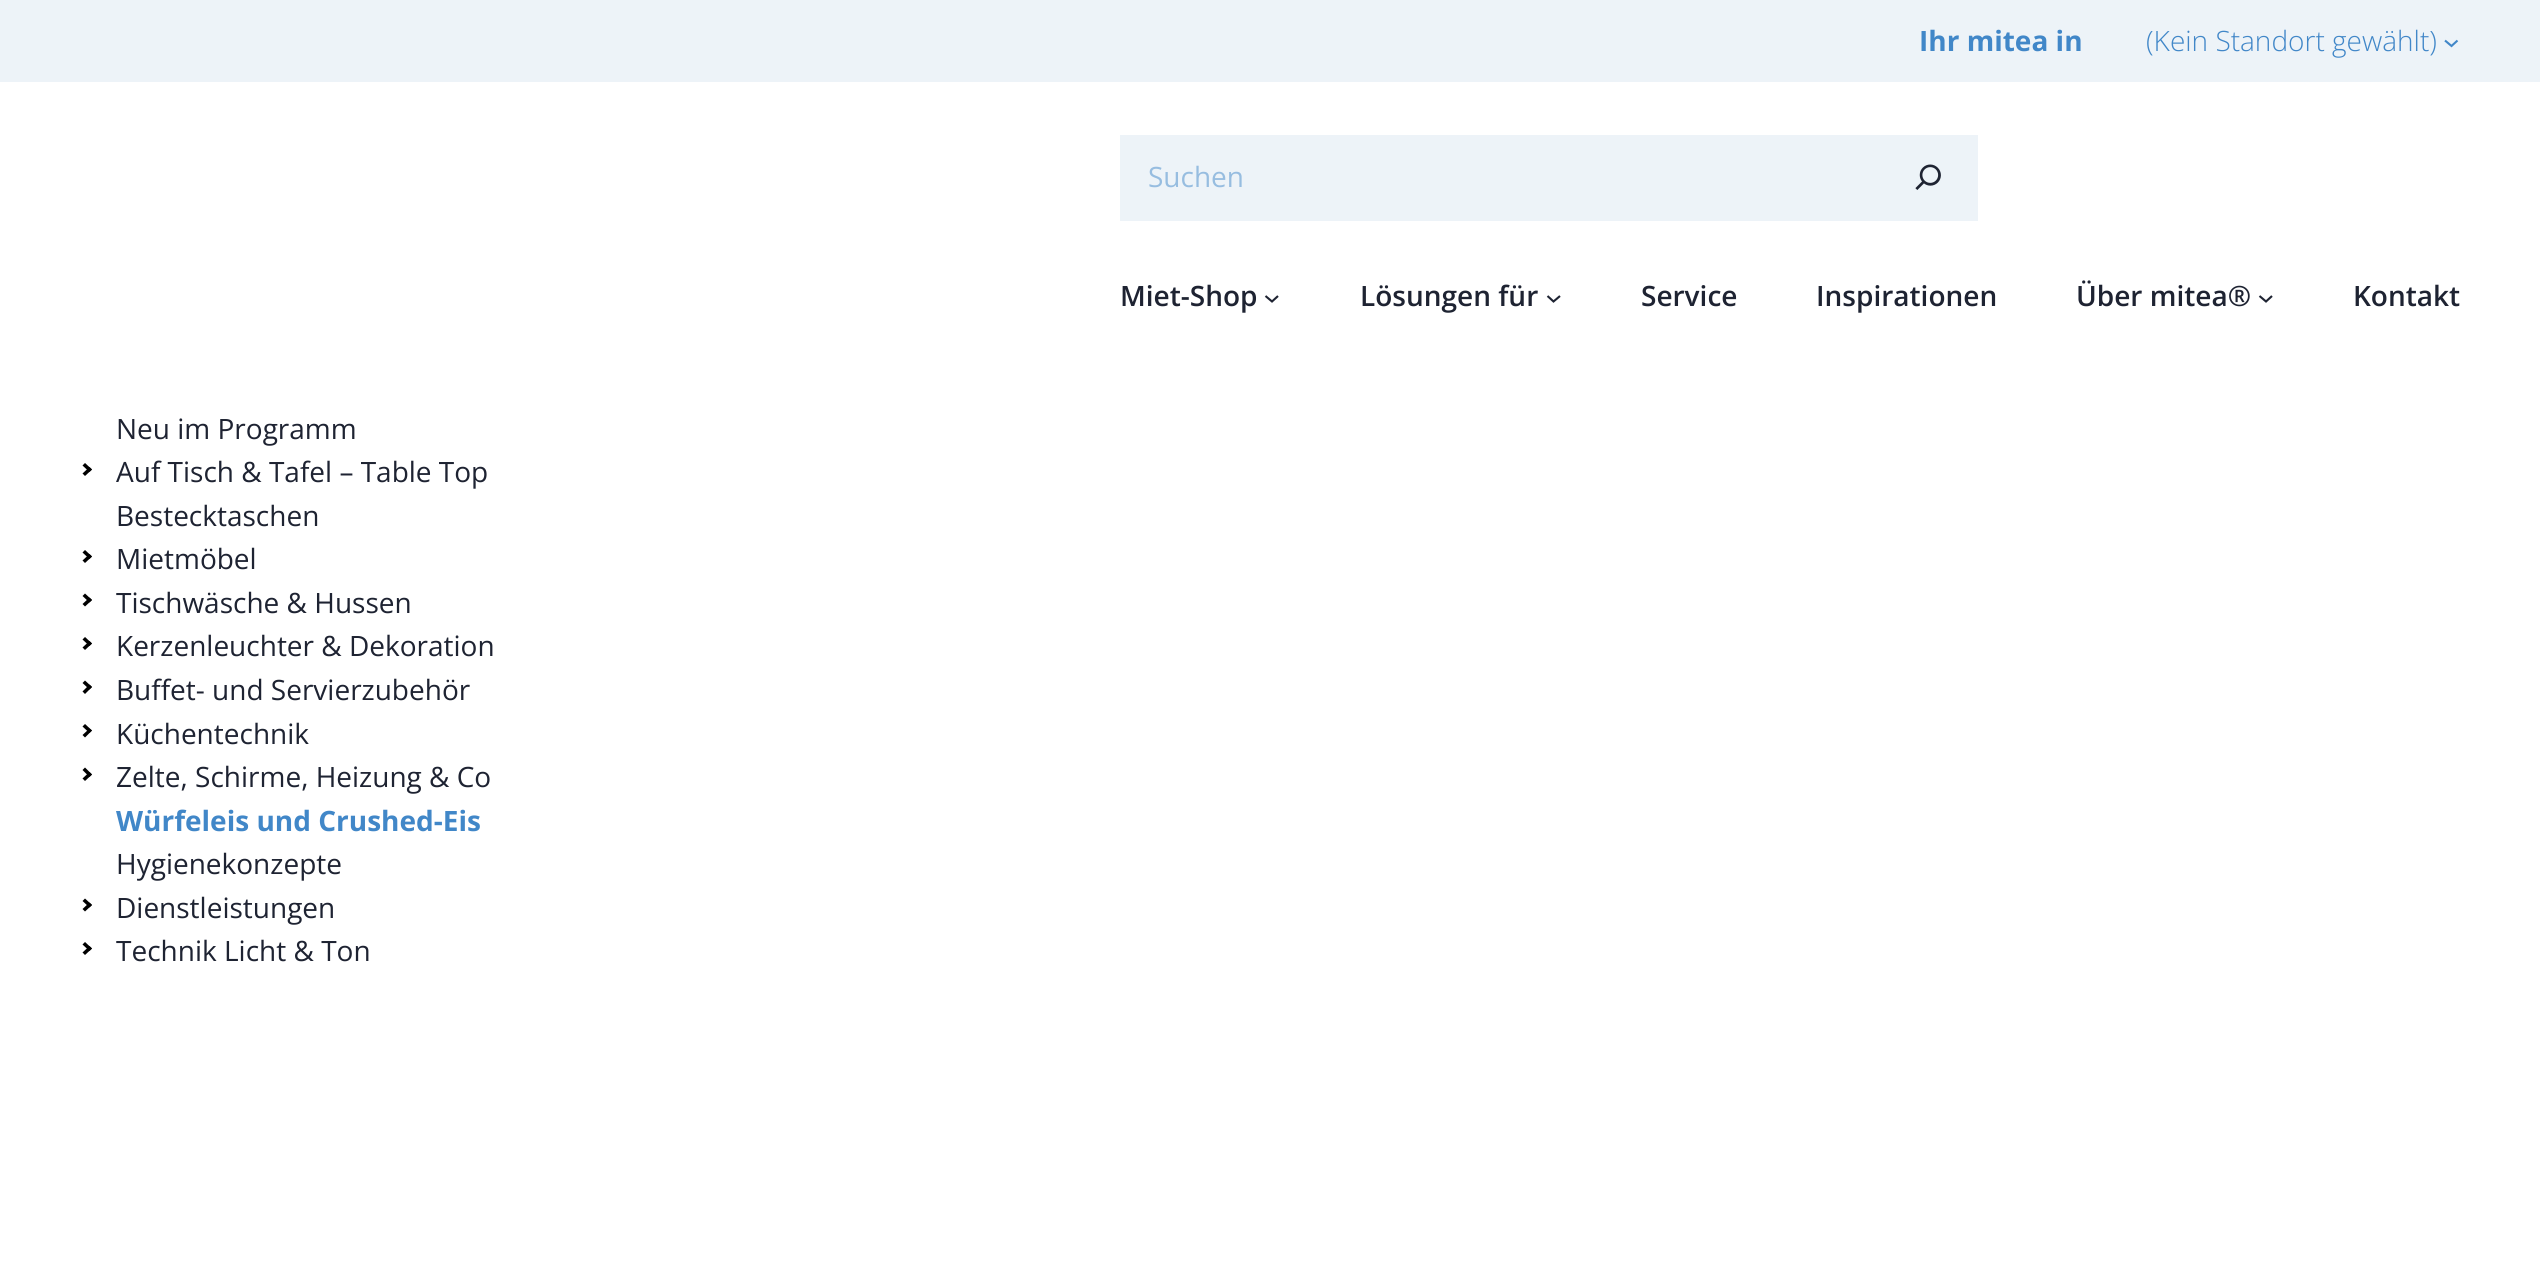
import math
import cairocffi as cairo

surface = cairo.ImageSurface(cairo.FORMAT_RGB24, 2540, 1270)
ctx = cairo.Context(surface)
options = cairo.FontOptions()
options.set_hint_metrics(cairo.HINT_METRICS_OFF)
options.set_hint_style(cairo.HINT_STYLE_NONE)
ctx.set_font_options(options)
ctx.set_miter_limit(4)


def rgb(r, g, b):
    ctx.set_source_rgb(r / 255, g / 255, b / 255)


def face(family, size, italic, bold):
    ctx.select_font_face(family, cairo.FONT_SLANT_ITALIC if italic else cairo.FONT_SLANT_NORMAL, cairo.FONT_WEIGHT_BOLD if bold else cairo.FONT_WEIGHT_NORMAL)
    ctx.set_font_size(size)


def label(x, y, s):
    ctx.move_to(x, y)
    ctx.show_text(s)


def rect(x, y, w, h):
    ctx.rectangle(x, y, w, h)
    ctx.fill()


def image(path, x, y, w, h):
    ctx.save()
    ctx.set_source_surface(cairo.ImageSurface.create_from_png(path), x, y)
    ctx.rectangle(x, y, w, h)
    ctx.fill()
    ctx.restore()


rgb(255, 255, 255)
ctx.paint()
rgb(237, 243, 248)
rect(0, 0, 2540, 82)
face('Open Sans', 28, 0, 1)
rgb(65, 135, 200)
label(1919, 51, 'Ihr mitea in')
face('Open Sans Light', 28, 0, 0)
label(2146, 51, '(Kein Standort gewählt)')
ctx.new_path()
ctx.move_to(2445, 40.5)
ctx.line_to(2451.5, 46)
ctx.line_to(2457.5, 40.5)
ctx.set_line_width(2.1)
ctx.stroke()
rgb(237, 243, 248)
rect(1120, 135, 858, 86)
face('Open Sans', 28, 0, 0)
rgb(151, 189, 224)
label(1148, 187, 'Suchen')
image('image0.png', 1915, 164, 26, 26)
face('Open Sans SemiBold', 28, 0, 0)
rgb(30, 35, 50)
label(1120, 306, 'Miet-Shop')
ctx.new_path()
ctx.move_to(1265.5, 296)
ctx.line_to(1272, 301.5)
ctx.line_to(1278, 296)
ctx.stroke()
label(1360, 306, 'Lösungen für')
ctx.new_path()
ctx.move_to(1547.5, 296)
ctx.line_to(1553.5, 301.5)
ctx.line_to(1560, 296)
ctx.stroke()
label(1641, 306, 'Service')
label(1816, 306, 'Inspirationen')
label(2076, 306, 'Über mitea®')
ctx.new_path()
ctx.move_to(2259.5, 296)
ctx.line_to(2266, 301.5)
ctx.line_to(2272, 296)
ctx.stroke()
label(2353, 306, 'Kontakt')
face('Open Sans', 28, 0, 0)
label(116, 439, 'Neu im Programm')
rgb(0, 0, 0)
ctx.new_path()
ctx.move_to(82.5, 465.5)
ctx.line_to(85, 463)
ctx.line_to(92, 469.5)
ctx.line_to(89.5, 472)
ctx.close_path()
ctx.fill()
ctx.new_path()
ctx.move_to(82.5, 473.5)
ctx.line_to(89.5, 467)
ctx.line_to(92, 469.5)
ctx.line_to(85, 476)
ctx.close_path()
ctx.fill()
rgb(30, 35, 50)
label(116, 482, 'Auf Tisch & Tafel – Table Top')
label(116, 526, 'Bestecktaschen')
rgb(0, 0, 0)
ctx.new_path()
ctx.move_to(82.5, 552.5)
ctx.line_to(85, 550)
ctx.line_to(92, 556.5)
ctx.line_to(89.5, 559)
ctx.close_path()
ctx.fill()
ctx.new_path()
ctx.move_to(82.5, 560.5)
ctx.line_to(89.5, 554)
ctx.line_to(92, 556.5)
ctx.line_to(85, 563)
ctx.close_path()
ctx.fill()
rgb(30, 35, 50)
label(116, 569, 'Mietmöbel')
rgb(0, 0, 0)
ctx.new_path()
ctx.move_to(82.5, 596)
ctx.line_to(85, 593.5)
ctx.line_to(92, 600)
ctx.line_to(89.5, 602.5)
ctx.close_path()
ctx.fill()
ctx.new_path()
ctx.move_to(82.5, 604)
ctx.line_to(89.5, 597.5)
ctx.line_to(92, 600)
ctx.line_to(85, 606.5)
ctx.close_path()
ctx.fill()
rgb(30, 35, 50)
label(116, 613, 'Tischwäsche & Hussen')
rgb(0, 0, 0)
ctx.new_path()
ctx.move_to(82.5, 639.5)
ctx.line_to(85, 637)
ctx.line_to(92, 643.5)
ctx.line_to(89.5, 646)
ctx.close_path()
ctx.fill()
ctx.new_path()
ctx.move_to(82.5, 647.5)
ctx.line_to(89.5, 641)
ctx.line_to(92, 643.5)
ctx.line_to(85, 650)
ctx.close_path()
ctx.fill()
rgb(30, 35, 50)
label(116, 656, 'Kerzenleuchter & Dekoration')
rgb(0, 0, 0)
ctx.new_path()
ctx.move_to(82.5, 683)
ctx.line_to(85, 680.5)
ctx.line_to(92, 687)
ctx.line_to(89.5, 689.5)
ctx.close_path()
ctx.fill()
ctx.new_path()
ctx.move_to(82.5, 691.5)
ctx.line_to(89.5, 684.5)
ctx.line_to(92, 687)
ctx.line_to(85, 694)
ctx.close_path()
ctx.fill()
rgb(30, 35, 50)
label(116, 700, 'Buffet- und Servierzubehör')
rgb(0, 0, 0)
ctx.new_path()
ctx.move_to(82.5, 726.5)
ctx.line_to(85, 724)
ctx.line_to(92, 730.5)
ctx.line_to(89.5, 733)
ctx.close_path()
ctx.fill()
ctx.new_path()
ctx.move_to(82.5, 735)
ctx.line_to(89.5, 728.5)
ctx.line_to(92, 730.5)
ctx.line_to(85, 737.5)
ctx.close_path()
ctx.fill()
rgb(30, 35, 50)
label(116, 744, 'Küchentechnik')
rgb(0, 0, 0)
ctx.new_path()
ctx.move_to(82.5, 770)
ctx.line_to(85, 767.5)
ctx.line_to(92, 774.5)
ctx.line_to(89.5, 777)
ctx.close_path()
ctx.fill()
ctx.new_path()
ctx.move_to(82.5, 778.5)
ctx.line_to(89.5, 772)
ctx.line_to(92, 774.5)
ctx.line_to(85, 781)
ctx.close_path()
ctx.fill()
rgb(30, 35, 50)
label(116, 787, 'Zelte, Schirme, Heizung & Co')
face('Open Sans', 28, 0, 1)
rgb(65, 135, 200)
label(116, 831, 'Würfeleis und Crushed-Eis')
face('Open Sans', 28, 0, 0)
rgb(30, 35, 50)
label(116, 874, 'Hygienekonzepte')
rgb(0, 0, 0)
ctx.new_path()
ctx.move_to(82.5, 901)
ctx.line_to(85, 898.5)
ctx.line_to(92, 905)
ctx.line_to(89.5, 907.5)
ctx.close_path()
ctx.fill()
ctx.new_path()
ctx.move_to(82.5, 909)
ctx.line_to(89.5, 902.5)
ctx.line_to(92, 905)
ctx.line_to(85, 911.5)
ctx.close_path()
ctx.fill()
rgb(30, 35, 50)
label(116, 918, 'Dienstleistungen')
rgb(0, 0, 0)
ctx.new_path()
ctx.move_to(82.5, 944.5)
ctx.line_to(85, 942)
ctx.line_to(92, 948.5)
ctx.line_to(89.5, 951)
ctx.close_path()
ctx.fill()
ctx.new_path()
ctx.move_to(82.5, 952.5)
ctx.line_to(89.5, 946)
ctx.line_to(92, 948.5)
ctx.line_to(85, 955)
ctx.close_path()
ctx.fill()
rgb(30, 35, 50)
label(116, 961, 'Technik Licht & Ton')
surface.write_to_png('render.png')
